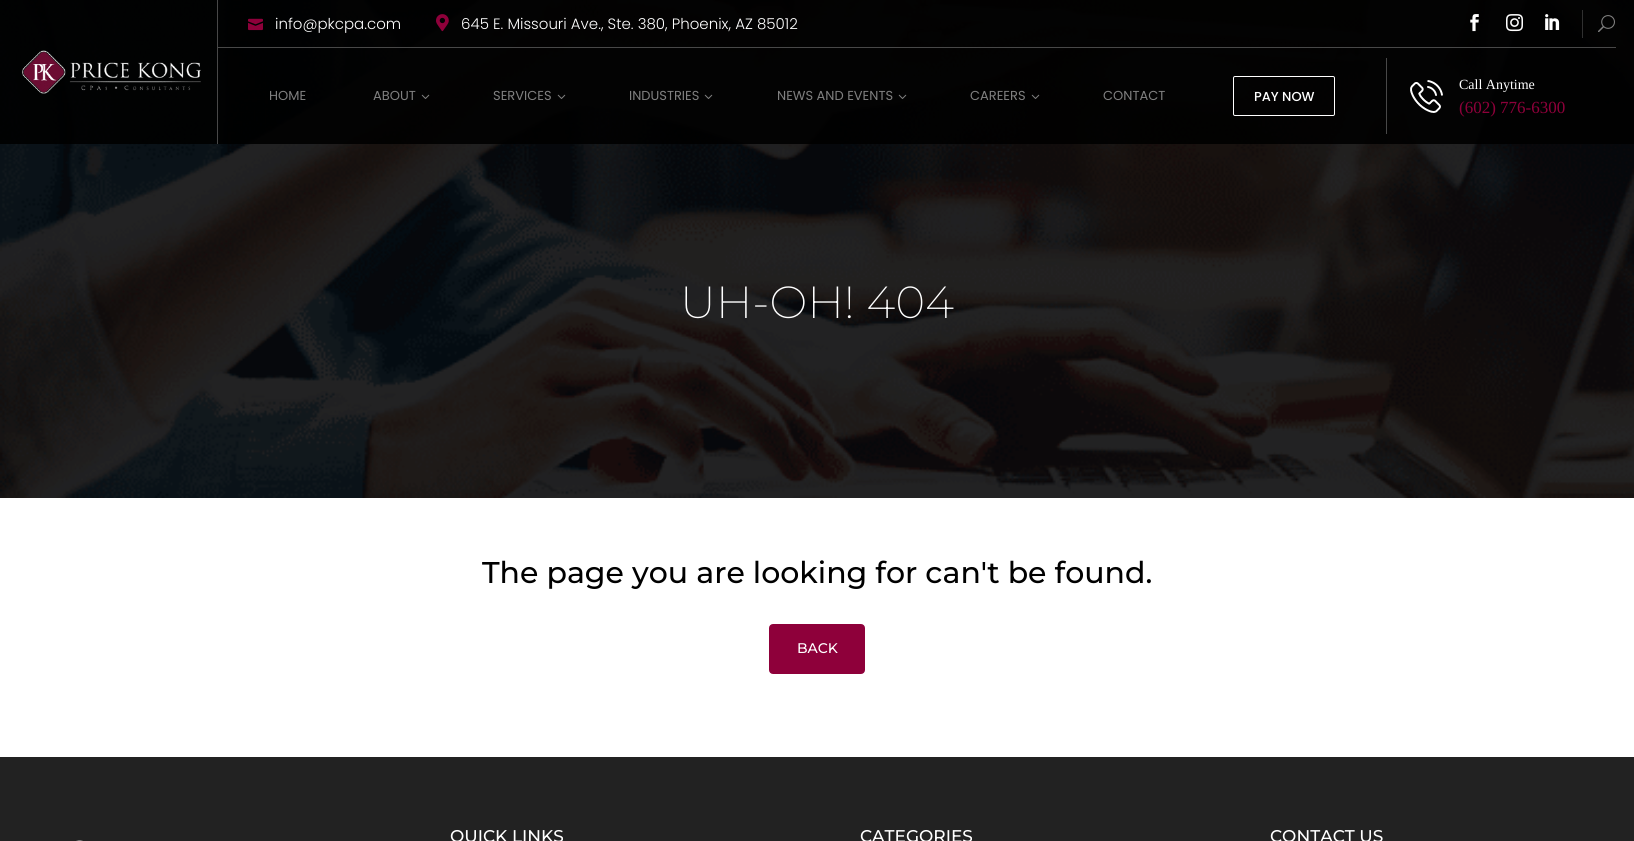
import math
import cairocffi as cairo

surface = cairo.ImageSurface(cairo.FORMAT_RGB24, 1634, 841)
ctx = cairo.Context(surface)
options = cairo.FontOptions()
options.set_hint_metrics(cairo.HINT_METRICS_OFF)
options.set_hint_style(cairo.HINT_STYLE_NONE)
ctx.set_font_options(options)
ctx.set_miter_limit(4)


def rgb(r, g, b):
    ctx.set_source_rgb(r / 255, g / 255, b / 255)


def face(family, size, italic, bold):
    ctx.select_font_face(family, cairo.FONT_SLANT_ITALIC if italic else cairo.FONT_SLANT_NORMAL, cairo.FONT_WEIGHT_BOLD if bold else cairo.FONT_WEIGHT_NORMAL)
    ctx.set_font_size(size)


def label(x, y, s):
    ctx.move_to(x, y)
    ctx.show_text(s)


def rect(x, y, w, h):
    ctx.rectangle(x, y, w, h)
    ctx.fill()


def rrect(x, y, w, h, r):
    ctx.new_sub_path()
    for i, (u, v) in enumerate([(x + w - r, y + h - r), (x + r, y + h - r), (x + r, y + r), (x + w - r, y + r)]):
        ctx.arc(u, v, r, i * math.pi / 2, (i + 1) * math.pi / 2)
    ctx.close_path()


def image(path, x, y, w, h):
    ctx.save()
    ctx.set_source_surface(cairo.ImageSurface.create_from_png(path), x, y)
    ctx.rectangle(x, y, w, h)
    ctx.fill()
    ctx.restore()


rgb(255, 255, 255)
ctx.paint()
image('image13.png', 0, 0, 1634, 498)
ctx.set_source_rgba(0, 0, 0, 0.9)
rect(0, 0, 1634, 144)
rgb(72, 72, 72)
rect(217, 0, 1, 144)
image('image0.png', 22, 50, 179, 44)
rect(218, 47, 1398, 1)
image('image1.png', 248, 18, 15, 13)
face('Poppins Light', 15, 0, 0)
rgb(255, 255, 255)
label(275, 29, 'info@pkcpa.com')
image('image2.png', 436, 14, 13, 18)
label(461, 29, '645 E. Missouri Ave., Ste. 380, Phoenix, AZ 85012')
image('image3.png', 1470, 14, 9, 18)
image('image4.png', 1506, 14, 17, 18)
image('image5.png', 1545, 14, 15, 16)
rgb(48, 48, 48)
rect(1582, 10, 1, 28)
image('image6.png', 1598, 15, 17, 17)
face('Poppins', 13, 0, 0)
rgb(128, 128, 128)
label(269, 100, 'HOME')
label(373, 100, 'ABOUT')
image('image7.png', 421, 94, 9, 5)
label(493, 100, 'SERVICES')
image('image8.png', 557, 94, 9, 5)
label(629, 100, 'INDUSTRIES')
image('image9.png', 704, 94, 9, 5)
label(777, 100, 'NEWS AND EVENTS')
image('image10.png', 898, 94, 9, 5)
label(970, 100, 'CAREERS')
image('image11.png', 1031, 94, 9, 5)
label(1103, 100, 'CONTACT')
rrect(1233.5, 76.5, 101, 39, 1.5)
rgb(255, 255, 255)
ctx.set_line_width(1)
ctx.stroke()
face('Poppins Medium', 13, 0, 0)
label(1254, 101, 'PAY NOW')
rgb(72, 72, 72)
rect(1386, 58, 1, 76)
image('image12.png', 1410, 80, 33, 33)
face('Liberation Serif', 14, 0, 0)
rgb(255, 255, 255)
label(1459, 89, 'Call Anytime')
face('Liberation Serif', 17, 0, 0)
rgb(142, 0, 58)
label(1459, 113, '(602) 776-6300')
face('Montserrat ExtraLight', 45, 0, 0)
rgb(255, 255, 255)
label(680, 318, 'UH-OH! 404')
face('Montserrat Medium', 30, 0, 0)
rgb(0, 0, 0)
label(482, 583, 'The page you are looking for can\'t be found.')
rgb(142, 0, 58)
rrect(770, 625, 94, 48, 3)
ctx.fill_preserve()
ctx.set_line_width(2)
ctx.stroke()
face('Montserrat Medium', 14, 0, 0)
rgb(255, 255, 255)
label(797, 653, 'BACK')
rgb(34, 34, 34)
rect(0, 757, 1634, 84)
image('image14.png', 76, 840, 7, 1)
face('Montserrat Medium', 17, 0, 0)
rgb(255, 255, 255)
label(450, 842, 'QUICK LINKS')
label(860, 842, 'CATEGORIES')
label(1270, 842, 'CONTACT US')
surface.write_to_png('render.png')
